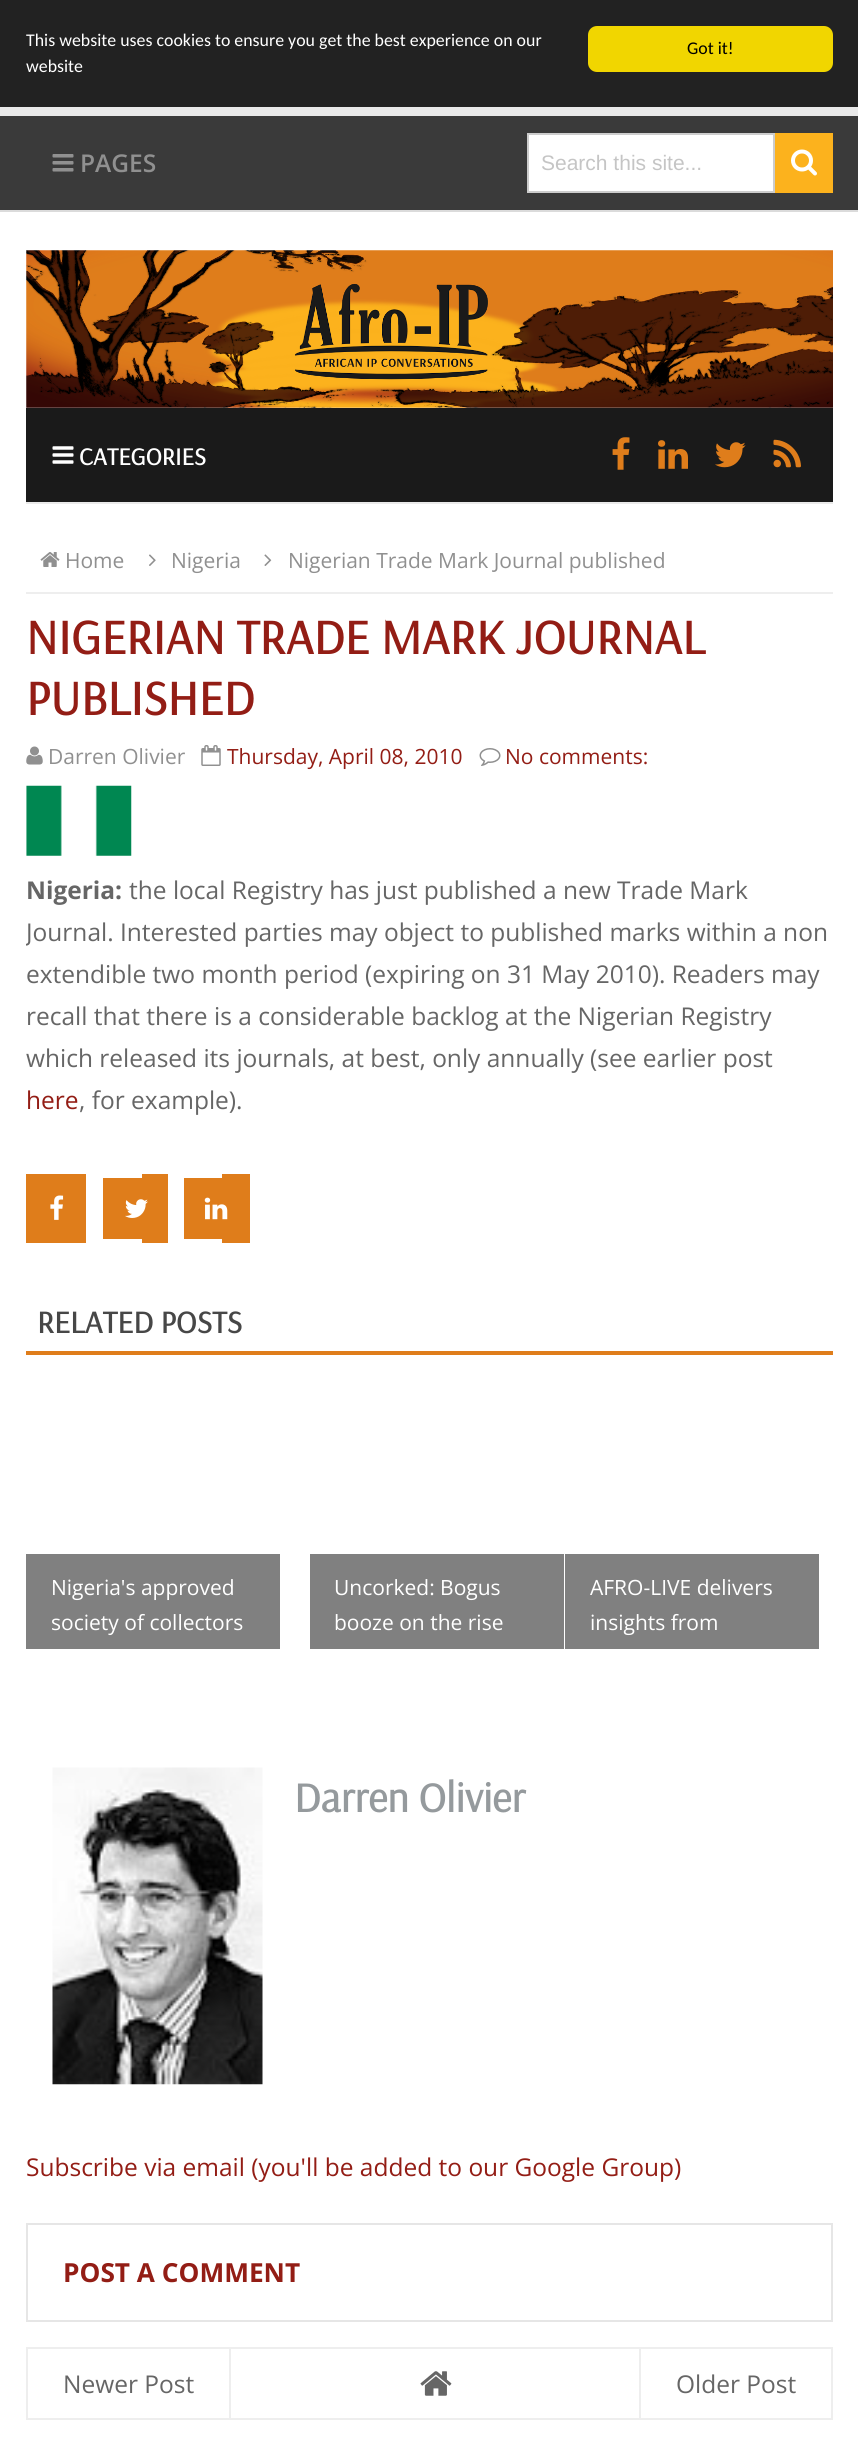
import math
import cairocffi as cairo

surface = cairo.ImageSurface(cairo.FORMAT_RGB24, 858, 2440)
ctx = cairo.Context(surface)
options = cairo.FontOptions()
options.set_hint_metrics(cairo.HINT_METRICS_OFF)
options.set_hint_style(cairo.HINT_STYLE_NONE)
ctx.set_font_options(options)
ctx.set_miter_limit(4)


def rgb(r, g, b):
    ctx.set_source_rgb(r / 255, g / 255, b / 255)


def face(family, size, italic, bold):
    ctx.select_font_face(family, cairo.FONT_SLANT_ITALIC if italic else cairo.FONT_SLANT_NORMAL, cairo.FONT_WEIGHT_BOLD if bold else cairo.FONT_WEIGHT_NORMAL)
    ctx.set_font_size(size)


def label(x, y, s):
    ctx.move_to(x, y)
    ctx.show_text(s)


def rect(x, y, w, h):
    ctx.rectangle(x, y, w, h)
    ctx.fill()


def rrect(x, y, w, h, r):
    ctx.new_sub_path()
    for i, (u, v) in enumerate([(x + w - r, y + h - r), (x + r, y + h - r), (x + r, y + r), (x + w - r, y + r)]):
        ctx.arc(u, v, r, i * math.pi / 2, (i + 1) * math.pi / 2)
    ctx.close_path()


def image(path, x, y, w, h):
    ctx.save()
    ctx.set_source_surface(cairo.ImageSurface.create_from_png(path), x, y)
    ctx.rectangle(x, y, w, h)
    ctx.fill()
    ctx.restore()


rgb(233, 233, 233)
ctx.paint()
rgb(34, 34, 34)
rect(0, 0, 858, 107)
face('Carlito', 17.85, 0, 0)
rgb(255, 255, 255)
label(26, 46, 'This website uses cookies to ensure you get the best experience on our')
label(26, 72, 'website')
rgb(241, 214, 0)
rrect(588, 26, 245, 46, 9)
ctx.fill()
rgb(0, 0, 0)
label(687, 54, 'Got it!')
rgb(255, 255, 255)
rect(0, 212, 858, 2228)
rgb(58, 58, 58)
rect(0, 116, 858, 94)
rgb(219, 219, 219)
rect(0, 210, 858, 2)
image('image0.png', 52, 154, 22, 18)
face('Open Sans SemiBold', 24.5, 0, 0)
rgb(144, 144, 144)
label(80, 172, 'PAGES')
rgb(255, 255, 255)
ctx.rectangle(528, 134, 246, 58)
ctx.fill_preserve()
rgb(204, 204, 204)
ctx.stroke()
face('Liberation Sans', 21, 0, 0)
rgb(197, 197, 197)
label(541, 170, 'Search this site...')
rgb(252, 178, 29)
rect(775, 133, 58, 60)
image('image1.png', 791, 149, 26, 27)
image('image2.png', 26, 250, 807, 158)
rgb(26, 26, 26)
rect(26, 408, 807, 94)
rgb(234, 234, 234)
rect(26, 502, 807, 2)
image('image3.png', 52, 446, 22, 18)
face('Arsenal', 24.5, 0, 1)
rgb(255, 255, 255)
label(79, 465, 'CATEGORIES')
image('image4.png', 612, 437, 18, 33)
image('image5.png', 658, 440, 30, 29)
image('image6.png', 715, 442, 31, 26)
image('image7.png', 773, 439, 28, 29)
rgb(238, 238, 238)
rect(26, 592, 807, 2)
image('image8.png', 40, 552, 20, 15)
face('Open Sans', 21, 0, 0)
rgb(144, 144, 144)
label(65, 568, 'Home')
image('image9.png', 149, 554, 7, 12)
label(171, 568, 'Nigeria')
image('image10.png', 264, 554, 8, 12)
label(288, 568, 'Nigerian Trade Mark Journal published')
face('Arsenal', 49, 0, 1)
rgb(147, 29, 21)
label(26, 654, 'NIGERIAN TRADE MARK JOURNAL')
label(26, 715, 'PUBLISHED')
image('image11.png', 26, 746, 17, 19)
face('Open Sans', 21, 0, 0)
rgb(144, 144, 144)
label(48, 764, 'Darren Olivier')
image('image12.png', 201, 745, 20, 21)
rgb(147, 29, 21)
label(227, 764, 'Thursday, April 08, 2010')
image('image13.png', 479, 748, 22, 18)
label(505, 764, 'No comments:')
image('image14.png', 26, 785, 106, 71)
face('Open Sans', 24.5, 0, 1)
rgb(102, 102, 102)
label(26, 899, 'Nigeria:')
face('Open Sans', 24.5, 0, 0)
label(129, 899, 'the local Registry has just published a new Trade Mark')
ctx.save()
ctx.rectangle(26, 604, 807, 642)
ctx.clip()
label(26, 941, 'Journal. Interested parties may object to published marks within a non')
ctx.restore()
label(26, 983, 'extendible two month period (expiring on 31 May 2010). Readers may')
label(26, 1025, 'recall that there is a considerable backlog at the Nigerian Registry')
label(26, 1067, 'which released its journals, at best, only annually (see earlier post')
rgb(147, 29, 21)
label(26, 1109, 'here')
rgb(102, 102, 102)
label(79, 1109, ', for example).')
rgb(223, 125, 27)
rect(26, 1174, 60, 69)
image('image15.png', 50, 1195, 14, 25)
rect(103, 1178, 39, 61)
rect(142, 1174, 26, 69)
image('image16.png', 125, 1199, 23, 19)
rect(184, 1178, 38, 61)
rect(222, 1174, 28, 69)
image('image17.png', 204, 1197, 24, 23)
rect(26, 1351, 807, 4)
face('Arsenal', 31.5, 0, 1)
rgb(71, 71, 71)
label(37, 1333, 'RELATED POSTS')
rgb(128, 128, 128)
rect(26, 1554, 254, 95)
face('Open Sans', 21, 0, 0)
rgb(255, 255, 255)
label(51, 1595, 'Nigeria\'s approved')
label(51, 1630, 'society of collectors')
rgb(128, 128, 128)
rect(310, 1554, 254, 95)
rgb(255, 255, 255)
label(334, 1595, 'Uncorked: Bogus')
label(334, 1630, 'booze on the rise')
rgb(128, 128, 128)
rect(565, 1554, 254, 95)
rgb(255, 255, 255)
label(590, 1595, 'AFRO-LIVE delivers')
label(590, 1630, 'insights from')
image('image18.png', 52, 1767, 211, 318)
face('Arsenal', 42, 0, 1)
rgb(149, 154, 157)
label(294, 1812, 'Darren Olivier')
face('Open Sans', 24.5, 0, 0)
rgb(147, 29, 21)
label(26, 2176, 'Subscribe via email (you\'ll be added to our Google Group)')
ctx.rectangle(27, 2224, 805, 97)
rgb(230, 230, 230)
ctx.stroke()
face('Open Sans', 26.25, 0, 1)
rgb(147, 29, 21)
label(63, 2282, 'POST A COMMENT')
ctx.rectangle(27, 2348, 805, 71)
rgb(238, 238, 238)
ctx.stroke()
rect(229, 2349, 2, 70)
face('Open Sans', 24.5, 0, 0)
rgb(102, 102, 102)
label(63, 2393, 'Newer Post')
image('image19.png', 420, 2371, 32, 25)
rgb(238, 238, 238)
rect(639, 2349, 2, 70)
rgb(102, 102, 102)
label(676, 2393, 'Older Post')
surface.write_to_png('render.png')
